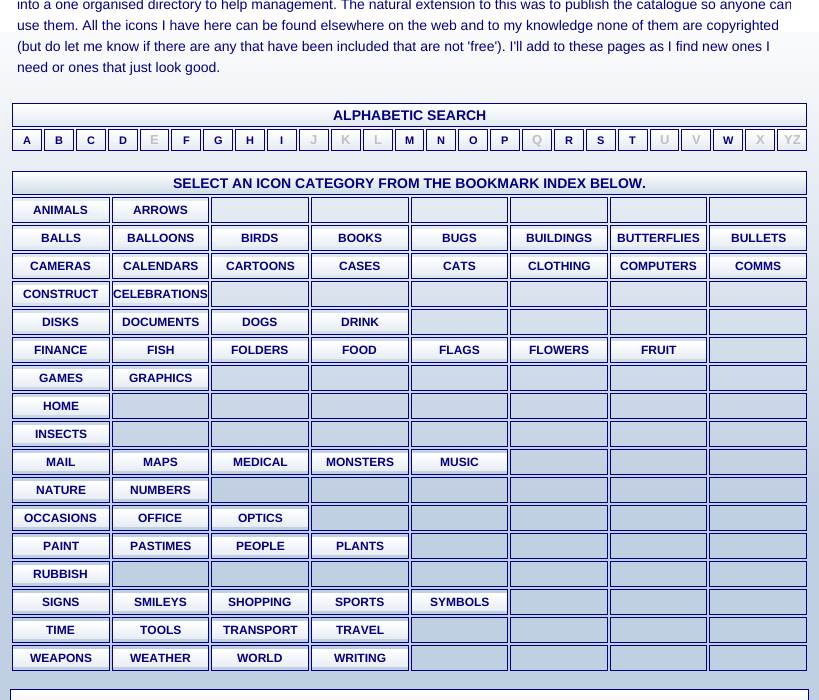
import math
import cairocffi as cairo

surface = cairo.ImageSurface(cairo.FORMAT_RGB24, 819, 700)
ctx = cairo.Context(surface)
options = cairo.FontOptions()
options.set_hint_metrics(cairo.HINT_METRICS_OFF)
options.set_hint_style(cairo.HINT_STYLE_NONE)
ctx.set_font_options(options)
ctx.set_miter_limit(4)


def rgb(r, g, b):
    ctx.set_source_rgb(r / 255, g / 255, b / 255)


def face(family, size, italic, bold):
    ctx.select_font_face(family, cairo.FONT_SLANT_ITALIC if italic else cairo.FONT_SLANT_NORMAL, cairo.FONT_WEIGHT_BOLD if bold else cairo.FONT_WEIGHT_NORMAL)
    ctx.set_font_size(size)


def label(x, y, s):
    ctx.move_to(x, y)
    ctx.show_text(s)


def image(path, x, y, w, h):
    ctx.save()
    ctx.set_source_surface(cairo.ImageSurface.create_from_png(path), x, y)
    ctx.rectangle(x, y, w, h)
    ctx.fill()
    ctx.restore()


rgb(255, 255, 255)
ctx.paint()
image('image0.png', 0, 32, 819, 668)
face('Liberation Sans', 14, 0, 0)
rgb(0, 0, 128)
label(17, 9, 'into a one organised directory to help management. The natural extension to this was to publish the catalogue so anyone can')
label(17, 30, 'use them. All the icons I have here can be found elsewhere on the web and to my knowledge none of them are copyrighted')
label(17, 51, '(but do let me know if there are any that have been included that are not \'free\'). I\'ll add to these pages as I find new ones I')
label(17, 72, 'need or ones that just look good.')
image('image1.png', 13, 104, 793, 22)
ctx.rectangle(12.5, 103.5, 794, 23)
ctx.set_line_width(1)
ctx.stroke()
face('Liberation Sans', 14, 0, 1)
label(333, 120, 'ALPHABETIC SEARCH')
image('image2.png', 13, 130, 28, 20)
ctx.rectangle(12.5, 129.5, 29, 21)
ctx.stroke()
face('Liberation Sans', 11, 0, 1)
label(23, 144, 'A')
image('image2.png', 45, 130, 28, 20)
ctx.rectangle(44.5, 129.5, 29, 21)
ctx.stroke()
label(55, 144, 'B')
image('image2.png', 77, 130, 28, 20)
ctx.rectangle(76.5, 129.5, 29, 21)
ctx.stroke()
label(87, 144, 'C')
image('image2.png', 109, 130, 28, 20)
ctx.rectangle(108.5, 129.5, 29, 21)
ctx.stroke()
label(119, 144, 'D')
image('image3.png', 141, 130, 27, 20)
ctx.rectangle(140.5, 129.5, 28, 21)
ctx.stroke()
face('Liberation Sans', 13, 0, 1)
rgb(192, 192, 192)
label(150, 144, 'E')
image('image2.png', 172, 130, 28, 20)
ctx.rectangle(171.5, 129.5, 29, 21)
rgb(0, 0, 128)
ctx.stroke()
face('Liberation Sans', 11, 0, 1)
label(183, 144, 'F')
image('image2.png', 204, 130, 28, 20)
ctx.rectangle(203.5, 129.5, 29, 21)
ctx.stroke()
label(214, 144, 'G')
image('image2.png', 236, 130, 28, 20)
ctx.rectangle(235.5, 129.5, 29, 21)
ctx.stroke()
label(246, 144, 'H')
image('image2.png', 268, 130, 28, 20)
ctx.rectangle(267.5, 129.5, 29, 21)
ctx.stroke()
label(280, 144, 'I')
image('image2.png', 300, 130, 28, 20)
ctx.rectangle(299.5, 129.5, 29, 21)
ctx.stroke()
face('Liberation Sans', 13, 0, 1)
rgb(192, 192, 192)
label(310, 144, 'J')
image('image2.png', 332, 130, 28, 20)
ctx.rectangle(331.5, 129.5, 29, 21)
rgb(0, 0, 128)
ctx.stroke()
rgb(192, 192, 192)
label(341, 144, 'K')
image('image2.png', 364, 130, 28, 20)
ctx.rectangle(363.5, 129.5, 29, 21)
rgb(0, 0, 128)
ctx.stroke()
rgb(192, 192, 192)
label(374, 144, 'L')
image('image3.png', 396, 130, 27, 20)
ctx.rectangle(395.5, 129.5, 28, 21)
rgb(0, 0, 128)
ctx.stroke()
face('Liberation Sans', 11, 0, 1)
label(405, 144, 'M')
image('image2.png', 427, 130, 28, 20)
ctx.rectangle(426.5, 129.5, 29, 21)
ctx.stroke()
label(437, 144, 'N')
image('image2.png', 459, 130, 28, 20)
ctx.rectangle(458.5, 129.5, 29, 21)
ctx.stroke()
label(469, 144, 'O')
image('image2.png', 491, 130, 28, 20)
ctx.rectangle(490.5, 129.5, 29, 21)
ctx.stroke()
label(501, 144, 'P')
image('image2.png', 523, 130, 28, 20)
ctx.rectangle(522.5, 129.5, 29, 21)
ctx.stroke()
face('Liberation Sans', 13, 0, 1)
rgb(192, 192, 192)
label(532, 144, 'Q')
image('image2.png', 555, 130, 28, 20)
ctx.rectangle(554.5, 129.5, 29, 21)
rgb(0, 0, 128)
ctx.stroke()
face('Liberation Sans', 11, 0, 1)
label(565, 144, 'R')
image('image2.png', 587, 130, 28, 20)
ctx.rectangle(586.5, 129.5, 29, 21)
ctx.stroke()
label(597, 144, 'S')
image('image2.png', 619, 130, 28, 20)
ctx.rectangle(618.5, 129.5, 29, 21)
ctx.stroke()
label(629, 144, 'T')
image('image3.png', 651, 130, 27, 20)
ctx.rectangle(650.5, 129.5, 28, 21)
ctx.stroke()
face('Liberation Sans', 13, 0, 1)
rgb(192, 192, 192)
label(660, 144, 'U')
image('image2.png', 682, 130, 28, 20)
ctx.rectangle(681.5, 129.5, 29, 21)
rgb(0, 0, 128)
ctx.stroke()
rgb(192, 192, 192)
label(692, 144, 'V')
image('image2.png', 714, 130, 28, 20)
ctx.rectangle(713.5, 129.5, 29, 21)
rgb(0, 0, 128)
ctx.stroke()
face('Liberation Sans', 11, 0, 1)
label(723, 144, 'W')
image('image2.png', 746, 130, 28, 20)
ctx.rectangle(745.5, 129.5, 29, 21)
ctx.stroke()
face('Liberation Sans', 13, 0, 1)
rgb(192, 192, 192)
label(756, 144, 'X')
image('image2.png', 778, 130, 28, 20)
ctx.rectangle(777.5, 129.5, 29, 21)
rgb(0, 0, 128)
ctx.stroke()
rgb(192, 192, 192)
label(784, 144, 'YZ')
image('image4.png', 13, 172, 793, 22)
ctx.rectangle(12.5, 171.5, 794, 23)
rgb(0, 0, 128)
ctx.stroke()
face('Liberation Sans', 14, 0, 1)
label(173, 188, 'SELECT AN ICON CATEGORY FROM THE BOOKMARK INDEX BELOW.')
ctx.rectangle(12.5, 197.5, 97, 25)
ctx.stroke()
image('image5.png', 13, 201, 96, 18)
face('Liberation Sans', 12, 0, 1)
label(33, 214, 'ANIMALS')
ctx.rectangle(112.5, 197.5, 96, 25)
ctx.stroke()
image('image6.png', 113, 201, 95, 18)
label(133, 214, 'ARROWS')
ctx.rectangle(211.5, 197.5, 97, 25)
ctx.stroke()
ctx.rectangle(311.5, 197.5, 97, 25)
ctx.stroke()
ctx.rectangle(411.5, 197.5, 96, 25)
ctx.stroke()
ctx.rectangle(510.5, 197.5, 97, 25)
ctx.stroke()
ctx.rectangle(610.5, 197.5, 96, 25)
ctx.stroke()
ctx.rectangle(709.5, 197.5, 97, 25)
ctx.stroke()
ctx.rectangle(12.5, 225.5, 97, 25)
ctx.stroke()
image('image5.png', 13, 229, 96, 18)
label(41, 242, 'BALLS')
ctx.rectangle(112.5, 225.5, 96, 25)
ctx.stroke()
image('image6.png', 113, 229, 95, 18)
label(127, 242, 'BALLOONS')
ctx.rectangle(211.5, 225.5, 97, 25)
ctx.stroke()
image('image5.png', 212, 229, 96, 18)
label(241, 242, 'BIRDS')
ctx.rectangle(311.5, 225.5, 97, 25)
ctx.stroke()
image('image5.png', 312, 229, 96, 18)
label(338, 242, 'BOOKS')
ctx.rectangle(411.5, 225.5, 96, 25)
ctx.stroke()
image('image6.png', 412, 229, 95, 18)
label(442, 242, 'BUGS')
ctx.rectangle(510.5, 225.5, 97, 25)
ctx.stroke()
image('image5.png', 511, 229, 96, 18)
label(526, 242, 'BUILDINGS')
ctx.rectangle(610.5, 225.5, 96, 25)
ctx.stroke()
image('image6.png', 611, 229, 95, 18)
label(617, 242, 'BUTTERFLIES')
ctx.rectangle(709.5, 225.5, 97, 25)
ctx.stroke()
image('image5.png', 710, 229, 96, 18)
label(731, 242, 'BULLETS')
ctx.rectangle(12.5, 253.5, 97, 25)
ctx.stroke()
image('image5.png', 13, 257, 96, 18)
label(30, 270, 'CAMERAS')
ctx.rectangle(112.5, 253.5, 96, 25)
ctx.stroke()
image('image6.png', 113, 257, 95, 18)
label(123, 270, 'CALENDARS')
ctx.rectangle(211.5, 253.5, 97, 25)
ctx.stroke()
image('image5.png', 212, 257, 96, 18)
label(226, 270, 'CARTOONS')
ctx.rectangle(311.5, 253.5, 97, 25)
ctx.stroke()
image('image5.png', 312, 257, 96, 18)
label(339, 270, 'CASES')
ctx.rectangle(411.5, 253.5, 96, 25)
ctx.stroke()
image('image6.png', 412, 257, 95, 18)
label(443, 270, 'CATS')
ctx.rectangle(510.5, 253.5, 97, 25)
ctx.stroke()
image('image5.png', 511, 257, 96, 18)
label(528, 270, 'CLOTHING')
ctx.rectangle(610.5, 253.5, 96, 25)
ctx.stroke()
image('image6.png', 611, 257, 95, 18)
label(620, 270, 'COMPUTERS')
ctx.rectangle(709.5, 253.5, 97, 25)
ctx.stroke()
image('image5.png', 710, 257, 96, 18)
label(735, 270, 'COMMS')
ctx.rectangle(12.5, 281.5, 97, 25)
ctx.stroke()
image('image5.png', 13, 285, 96, 18)
label(23, 298, 'CONSTRUCT')
ctx.rectangle(112.5, 281.5, 96, 25)
ctx.stroke()
image('image6.png', 113, 285, 95, 18)
label(113, 298, 'CELEBRATIONS')
ctx.rectangle(211.5, 281.5, 97, 25)
ctx.stroke()
ctx.rectangle(311.5, 281.5, 97, 25)
ctx.stroke()
ctx.rectangle(411.5, 281.5, 96, 25)
ctx.stroke()
ctx.rectangle(510.5, 281.5, 97, 25)
ctx.stroke()
ctx.rectangle(610.5, 281.5, 96, 25)
ctx.stroke()
ctx.rectangle(709.5, 281.5, 97, 25)
ctx.stroke()
ctx.rectangle(12.5, 309.5, 97, 25)
ctx.stroke()
image('image5.png', 13, 313, 96, 18)
label(42, 326, 'DISKS')
ctx.rectangle(112.5, 309.5, 96, 25)
ctx.stroke()
image('image6.png', 113, 313, 95, 18)
label(122, 326, 'DOCUMENTS')
ctx.rectangle(211.5, 309.5, 97, 25)
ctx.stroke()
image('image5.png', 212, 313, 96, 18)
label(242, 326, 'DOGS')
ctx.rectangle(311.5, 309.5, 97, 25)
ctx.stroke()
image('image5.png', 312, 313, 96, 18)
label(341, 326, 'DRINK')
ctx.rectangle(411.5, 309.5, 96, 25)
ctx.stroke()
ctx.rectangle(510.5, 309.5, 97, 25)
ctx.stroke()
ctx.rectangle(610.5, 309.5, 96, 25)
ctx.stroke()
ctx.rectangle(709.5, 309.5, 97, 25)
ctx.stroke()
ctx.rectangle(12.5, 337.5, 97, 25)
ctx.stroke()
image('image5.png', 13, 341, 96, 18)
label(34, 354, 'FINANCE')
ctx.rectangle(112.5, 337.5, 96, 25)
ctx.stroke()
image('image6.png', 113, 341, 95, 18)
label(147, 354, 'FISH')
ctx.rectangle(211.5, 337.5, 97, 25)
ctx.stroke()
image('image5.png', 212, 341, 96, 18)
label(231, 354, 'FOLDERS')
ctx.rectangle(311.5, 337.5, 97, 25)
ctx.stroke()
image('image5.png', 312, 341, 96, 18)
label(342, 354, 'FOOD')
ctx.rectangle(411.5, 337.5, 96, 25)
ctx.stroke()
image('image6.png', 412, 341, 95, 18)
label(439, 354, 'FLAGS')
ctx.rectangle(510.5, 337.5, 97, 25)
ctx.stroke()
image('image5.png', 511, 341, 96, 18)
label(529, 354, 'FLOWERS')
ctx.rectangle(610.5, 337.5, 96, 25)
ctx.stroke()
image('image6.png', 611, 341, 95, 18)
label(641, 354, 'FRUIT')
ctx.rectangle(709.5, 337.5, 97, 25)
ctx.stroke()
ctx.rectangle(12.5, 365.5, 97, 25)
ctx.stroke()
image('image5.png', 13, 369, 96, 18)
label(39, 382, 'GAMES')
ctx.rectangle(112.5, 365.5, 96, 25)
ctx.stroke()
image('image6.png', 113, 369, 95, 18)
label(129, 382, 'GRAPHICS')
ctx.rectangle(211.5, 365.5, 97, 25)
ctx.stroke()
ctx.rectangle(311.5, 365.5, 97, 25)
ctx.stroke()
ctx.rectangle(411.5, 365.5, 96, 25)
ctx.stroke()
ctx.rectangle(510.5, 365.5, 97, 25)
ctx.stroke()
ctx.rectangle(610.5, 365.5, 96, 25)
ctx.stroke()
ctx.rectangle(709.5, 365.5, 97, 25)
ctx.stroke()
ctx.rectangle(12.5, 393.5, 97, 25)
ctx.stroke()
image('image5.png', 13, 397, 96, 18)
label(43, 410, 'HOME')
ctx.rectangle(112.5, 393.5, 96, 25)
ctx.stroke()
ctx.rectangle(211.5, 393.5, 97, 25)
ctx.stroke()
ctx.rectangle(311.5, 393.5, 97, 25)
ctx.stroke()
ctx.rectangle(411.5, 393.5, 96, 25)
ctx.stroke()
ctx.rectangle(510.5, 393.5, 97, 25)
ctx.stroke()
ctx.rectangle(610.5, 393.5, 96, 25)
ctx.stroke()
ctx.rectangle(709.5, 393.5, 97, 25)
ctx.stroke()
ctx.rectangle(12.5, 421.5, 97, 25)
ctx.stroke()
image('image5.png', 13, 425, 96, 18)
label(35, 438, 'INSECTS')
ctx.rectangle(112.5, 421.5, 96, 25)
ctx.stroke()
ctx.rectangle(211.5, 421.5, 97, 25)
ctx.stroke()
ctx.rectangle(311.5, 421.5, 97, 25)
ctx.stroke()
ctx.rectangle(411.5, 421.5, 96, 25)
ctx.stroke()
ctx.rectangle(510.5, 421.5, 97, 25)
ctx.stroke()
ctx.rectangle(610.5, 421.5, 96, 25)
ctx.stroke()
ctx.rectangle(709.5, 421.5, 97, 25)
ctx.stroke()
ctx.rectangle(12.5, 449.5, 97, 25)
ctx.stroke()
image('image5.png', 13, 453, 96, 18)
label(46, 466, 'MAIL')
ctx.rectangle(112.5, 449.5, 96, 25)
ctx.stroke()
image('image6.png', 113, 453, 95, 18)
label(143, 466, 'MAPS')
ctx.rectangle(211.5, 449.5, 97, 25)
ctx.stroke()
image('image5.png', 212, 453, 96, 18)
label(233, 466, 'MEDICAL')
ctx.rectangle(311.5, 449.5, 97, 25)
ctx.stroke()
image('image5.png', 312, 453, 96, 18)
label(326, 466, 'MONSTERS')
ctx.rectangle(411.5, 449.5, 96, 25)
ctx.stroke()
image('image6.png', 412, 453, 95, 18)
label(440, 466, 'MUSIC')
ctx.rectangle(510.5, 449.5, 97, 25)
ctx.stroke()
ctx.rectangle(610.5, 449.5, 96, 25)
ctx.stroke()
ctx.rectangle(709.5, 449.5, 97, 25)
ctx.stroke()
ctx.rectangle(12.5, 477.5, 97, 25)
ctx.stroke()
image('image5.png', 13, 481, 96, 18)
label(36, 494, 'NATURE')
ctx.rectangle(112.5, 477.5, 96, 25)
ctx.stroke()
image('image6.png', 113, 481, 95, 18)
label(130, 494, 'NUMBERS')
ctx.rectangle(211.5, 477.5, 97, 25)
ctx.stroke()
ctx.rectangle(311.5, 477.5, 97, 25)
ctx.stroke()
ctx.rectangle(411.5, 477.5, 96, 25)
ctx.stroke()
ctx.rectangle(510.5, 477.5, 97, 25)
ctx.stroke()
ctx.rectangle(610.5, 477.5, 96, 25)
ctx.stroke()
ctx.rectangle(709.5, 477.5, 97, 25)
ctx.stroke()
ctx.rectangle(12.5, 505.5, 97, 25)
ctx.stroke()
image('image5.png', 13, 509, 96, 18)
label(24, 522, 'OCCASIONS')
ctx.rectangle(112.5, 505.5, 96, 25)
ctx.stroke()
image('image6.png', 113, 509, 95, 18)
label(138, 522, 'OFFICE')
ctx.rectangle(211.5, 505.5, 97, 25)
ctx.stroke()
image('image5.png', 212, 509, 96, 18)
label(238, 522, 'OPTICS')
ctx.rectangle(311.5, 505.5, 97, 25)
ctx.stroke()
ctx.rectangle(411.5, 505.5, 96, 25)
ctx.stroke()
ctx.rectangle(510.5, 505.5, 97, 25)
ctx.stroke()
ctx.rectangle(610.5, 505.5, 96, 25)
ctx.stroke()
ctx.rectangle(709.5, 505.5, 97, 25)
ctx.stroke()
ctx.rectangle(12.5, 533.5, 97, 25)
ctx.stroke()
image('image5.png', 13, 537, 96, 18)
label(43, 550, 'PAINT')
ctx.rectangle(112.5, 533.5, 96, 25)
ctx.stroke()
image('image6.png', 113, 537, 95, 18)
label(130, 550, 'PASTIMES')
ctx.rectangle(211.5, 533.5, 97, 25)
ctx.stroke()
image('image5.png', 212, 537, 96, 18)
label(236, 550, 'PEOPLE')
ctx.rectangle(311.5, 533.5, 97, 25)
ctx.stroke()
image('image5.png', 312, 537, 96, 18)
label(336, 550, 'PLANTS')
ctx.rectangle(411.5, 533.5, 96, 25)
ctx.stroke()
ctx.rectangle(510.5, 533.5, 97, 25)
ctx.stroke()
ctx.rectangle(610.5, 533.5, 96, 25)
ctx.stroke()
ctx.rectangle(709.5, 533.5, 97, 25)
ctx.stroke()
ctx.rectangle(12.5, 561.5, 97, 25)
ctx.stroke()
image('image5.png', 13, 565, 96, 18)
label(33, 578, 'RUBBISH')
ctx.rectangle(112.5, 561.5, 96, 25)
ctx.stroke()
ctx.rectangle(211.5, 561.5, 97, 25)
ctx.stroke()
ctx.rectangle(311.5, 561.5, 97, 25)
ctx.stroke()
ctx.rectangle(411.5, 561.5, 96, 25)
ctx.stroke()
ctx.rectangle(510.5, 561.5, 97, 25)
ctx.stroke()
ctx.rectangle(610.5, 561.5, 96, 25)
ctx.stroke()
ctx.rectangle(709.5, 561.5, 97, 25)
ctx.stroke()
ctx.rectangle(12.5, 589.5, 97, 25)
ctx.stroke()
image('image5.png', 13, 593, 96, 18)
label(42, 606, 'SIGNS')
ctx.rectangle(112.5, 589.5, 96, 25)
ctx.stroke()
image('image6.png', 113, 593, 95, 18)
label(134, 606, 'SMILEYS')
ctx.rectangle(211.5, 589.5, 97, 25)
ctx.stroke()
image('image5.png', 212, 593, 96, 18)
label(228, 606, 'SHOPPING')
ctx.rectangle(311.5, 589.5, 97, 25)
ctx.stroke()
image('image5.png', 312, 593, 96, 18)
label(335, 606, 'SPORTS')
ctx.rectangle(411.5, 589.5, 96, 25)
ctx.stroke()
image('image6.png', 412, 593, 95, 18)
label(430, 606, 'SYMBOLS')
ctx.rectangle(510.5, 589.5, 97, 25)
ctx.stroke()
ctx.rectangle(610.5, 589.5, 96, 25)
ctx.stroke()
ctx.rectangle(709.5, 589.5, 97, 25)
ctx.stroke()
ctx.rectangle(12.5, 617.5, 97, 25)
ctx.stroke()
image('image5.png', 13, 621, 96, 18)
label(46, 634, 'TIME')
ctx.rectangle(112.5, 617.5, 96, 25)
ctx.stroke()
image('image6.png', 113, 621, 95, 18)
label(140, 634, 'TOOLS')
ctx.rectangle(211.5, 617.5, 97, 25)
ctx.stroke()
image('image5.png', 212, 621, 96, 18)
label(223, 634, 'TRANSPORT')
ctx.rectangle(311.5, 617.5, 97, 25)
ctx.stroke()
image('image5.png', 312, 621, 96, 18)
label(336, 634, 'TRAVEL')
ctx.rectangle(411.5, 617.5, 96, 25)
ctx.stroke()
ctx.rectangle(510.5, 617.5, 97, 25)
ctx.stroke()
ctx.rectangle(610.5, 617.5, 96, 25)
ctx.stroke()
ctx.rectangle(709.5, 617.5, 97, 25)
ctx.stroke()
ctx.rectangle(12.5, 645.5, 97, 25)
ctx.stroke()
image('image5.png', 13, 649, 96, 18)
label(30, 662, 'WEAPONS')
ctx.rectangle(112.5, 645.5, 96, 25)
ctx.stroke()
image('image6.png', 113, 649, 95, 18)
label(130, 662, 'WEATHER')
ctx.rectangle(211.5, 645.5, 97, 25)
ctx.stroke()
image('image5.png', 212, 649, 96, 18)
label(237, 662, 'WORLD')
ctx.rectangle(311.5, 645.5, 97, 25)
ctx.stroke()
image('image5.png', 312, 649, 96, 18)
label(334, 662, 'WRITING')
ctx.rectangle(411.5, 645.5, 96, 25)
ctx.stroke()
ctx.rectangle(510.5, 645.5, 97, 25)
ctx.stroke()
ctx.rectangle(610.5, 645.5, 96, 25)
ctx.stroke()
ctx.rectangle(709.5, 645.5, 97, 25)
ctx.stroke()
image('image7.png', 11, 690, 797, 10)
ctx.rectangle(10.5, 689.5, 798, 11)
ctx.stroke()
surface.write_to_png('render.png')
